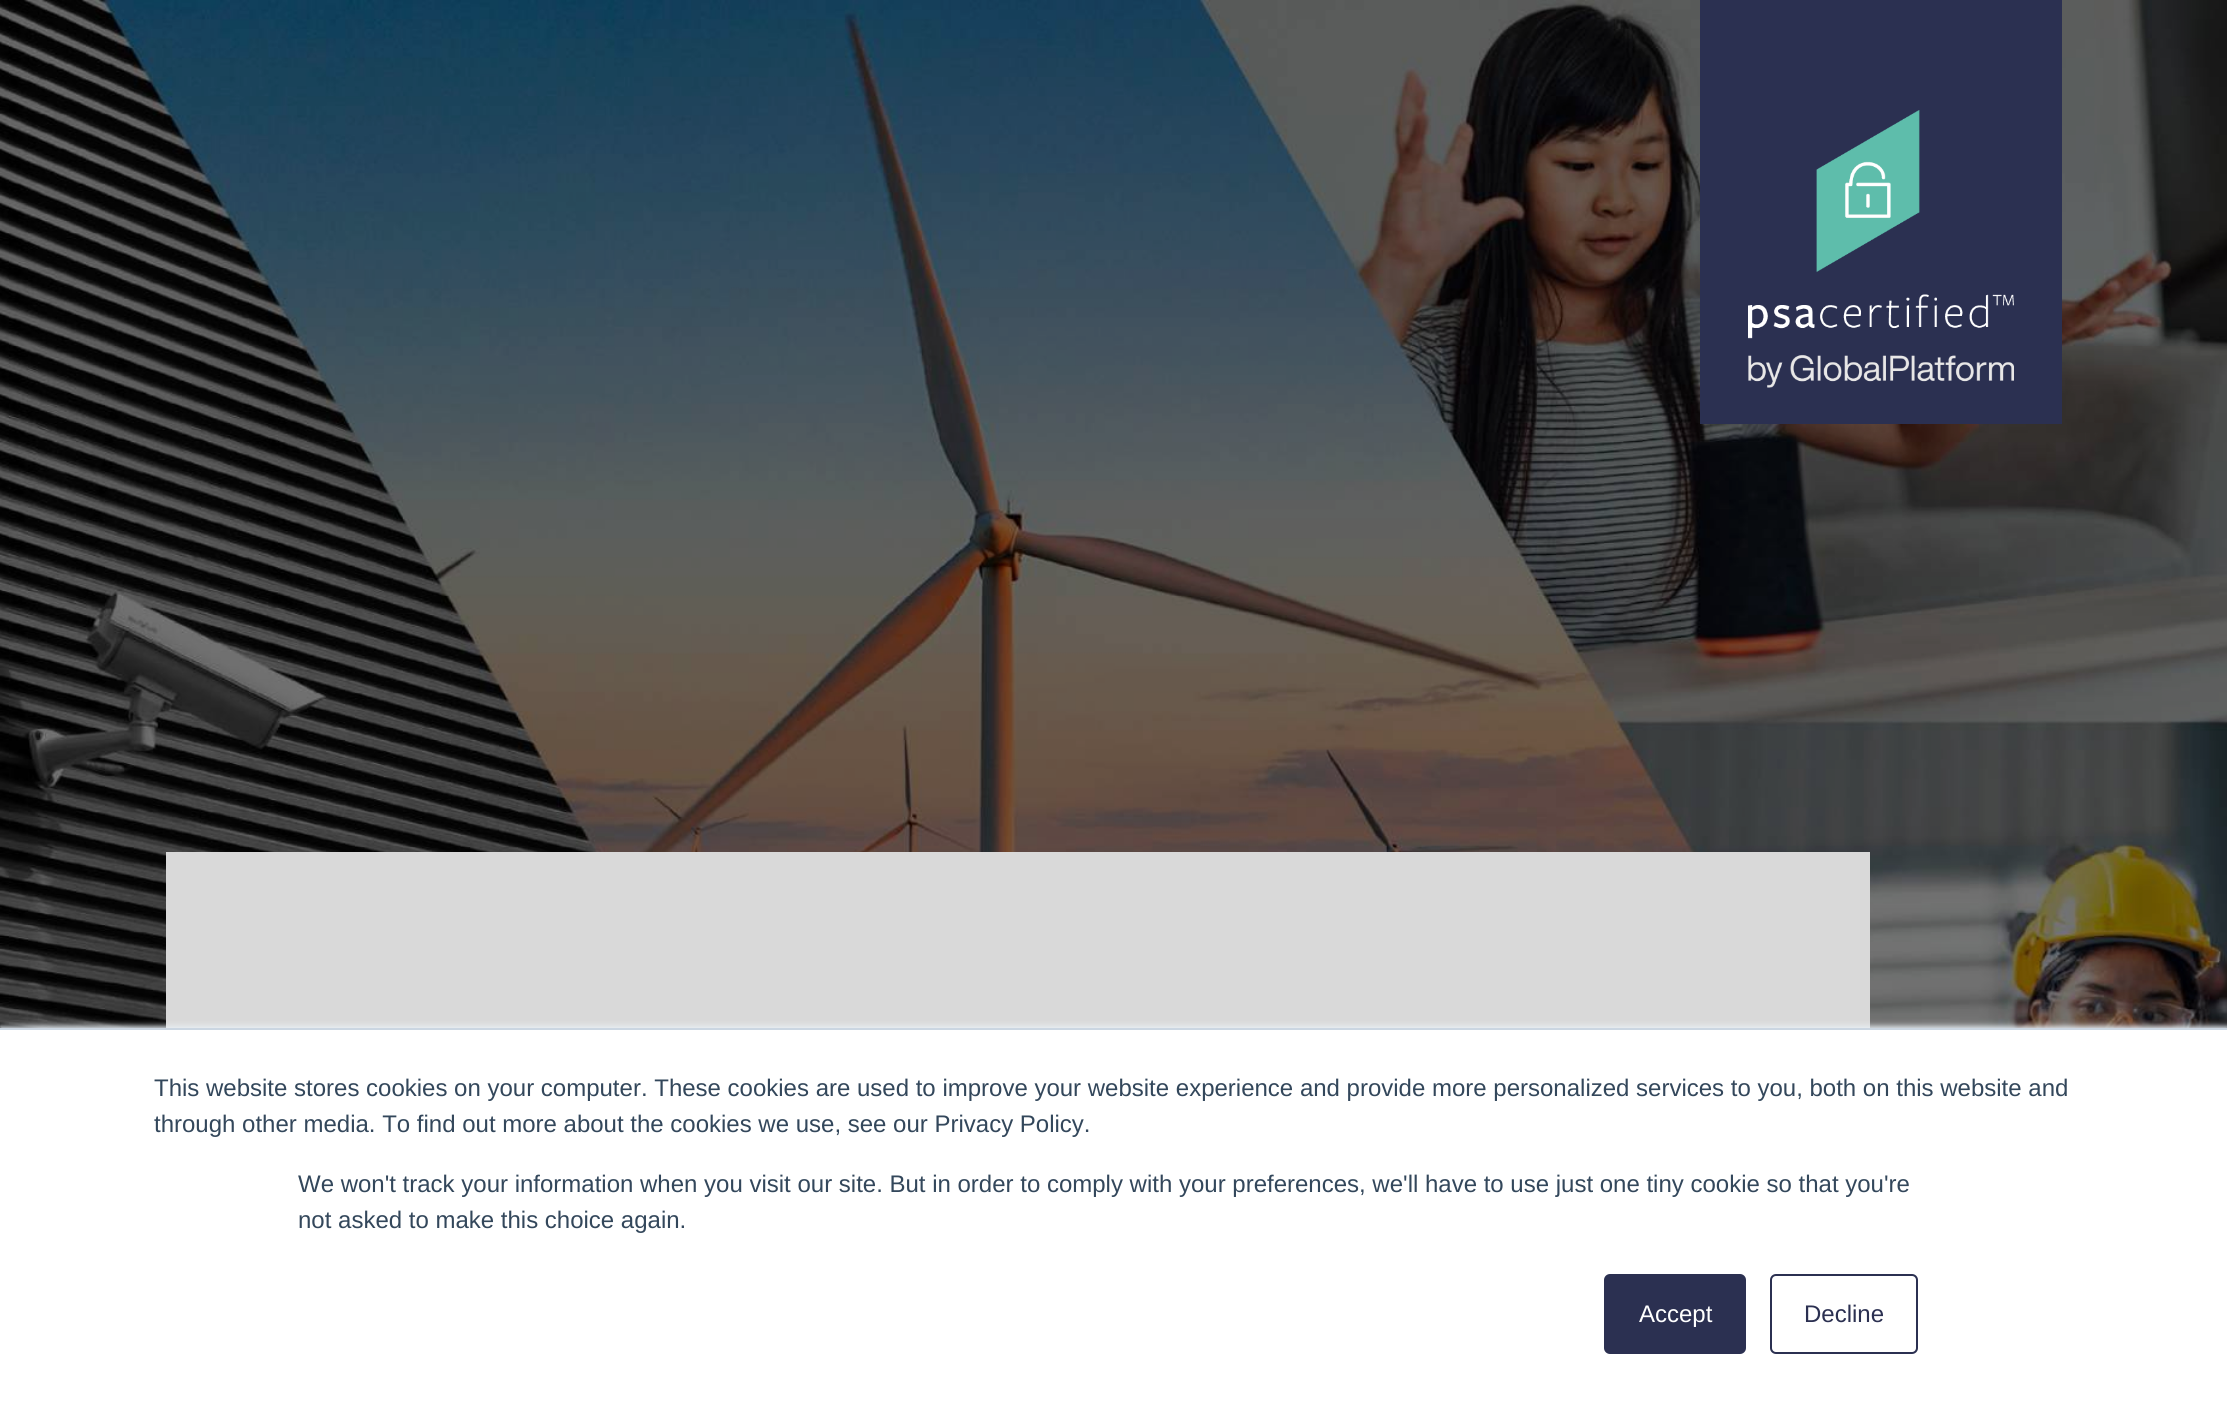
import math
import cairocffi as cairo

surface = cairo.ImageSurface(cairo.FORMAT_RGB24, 2227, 1405)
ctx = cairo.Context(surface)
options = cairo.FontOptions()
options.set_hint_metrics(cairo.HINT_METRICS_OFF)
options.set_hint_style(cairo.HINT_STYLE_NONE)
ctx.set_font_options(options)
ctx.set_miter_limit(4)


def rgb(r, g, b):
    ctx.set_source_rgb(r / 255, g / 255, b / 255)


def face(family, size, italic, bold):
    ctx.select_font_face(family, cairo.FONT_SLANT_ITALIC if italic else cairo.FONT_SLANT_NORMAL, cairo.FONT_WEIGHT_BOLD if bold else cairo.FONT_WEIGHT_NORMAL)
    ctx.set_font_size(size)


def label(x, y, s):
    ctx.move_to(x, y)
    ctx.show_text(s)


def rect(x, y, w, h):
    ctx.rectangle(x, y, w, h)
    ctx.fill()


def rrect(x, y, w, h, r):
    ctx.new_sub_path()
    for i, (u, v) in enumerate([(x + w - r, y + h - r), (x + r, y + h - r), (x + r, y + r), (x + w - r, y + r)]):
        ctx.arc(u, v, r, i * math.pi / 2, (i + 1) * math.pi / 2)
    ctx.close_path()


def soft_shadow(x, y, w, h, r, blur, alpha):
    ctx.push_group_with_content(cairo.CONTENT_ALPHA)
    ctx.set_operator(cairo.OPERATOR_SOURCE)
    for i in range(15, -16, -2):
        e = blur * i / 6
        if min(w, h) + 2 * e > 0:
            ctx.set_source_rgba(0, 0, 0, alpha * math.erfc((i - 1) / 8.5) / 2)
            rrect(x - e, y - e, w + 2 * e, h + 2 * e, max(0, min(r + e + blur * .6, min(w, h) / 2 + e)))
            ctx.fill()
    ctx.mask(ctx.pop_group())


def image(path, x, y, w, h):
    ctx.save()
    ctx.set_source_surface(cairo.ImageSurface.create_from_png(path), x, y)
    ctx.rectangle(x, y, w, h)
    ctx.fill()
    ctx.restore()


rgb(255, 255, 255)
ctx.paint()
image('image0.png', 0, 0, 2227, 1028)
rgb(217, 217, 217)
rect(166, 852, 1704, 176)
rgb(43, 48, 81)
rect(1700, 0, 362, 424)
image('image1.png', 1748, 110, 266, 278)
rgb(234, 240, 246)
soft_shadow(0, 1026, 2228, 378, 0, 3, 1)
rgb(255, 255, 255)
rect(0, 1030, 2227, 375)
rgb(203, 214, 226)
rect(0, 1028, 2227, 2)
face('Liberation Sans', 24, 0, 0)
rgb(51, 71, 91)
label(154, 1096, 'This website stores cookies on your computer. These cookies are used to improve your website experience and provide more personalized services to you, both on this website and')
label(154, 1132, 'through other media. To find out more about the cookies we use, see our Privacy Policy.')
label(298, 1192, 'We won\'t track your information when you visit our site. But in order to comply with your preferences, we\'ll have to use just one tiny cookie so that you\'re')
label(298, 1228, 'not asked to make this choice again.')
rgb(43, 48, 81)
rrect(1605, 1275, 140, 78, 5)
ctx.fill_preserve()
ctx.stroke()
rgb(255, 255, 255)
label(1639, 1322, 'Accept')
rrect(1771, 1275, 146, 78, 5)
rgb(43, 48, 81)
ctx.stroke()
label(1804, 1322, 'Decline')
surface.write_to_png('render.png')
